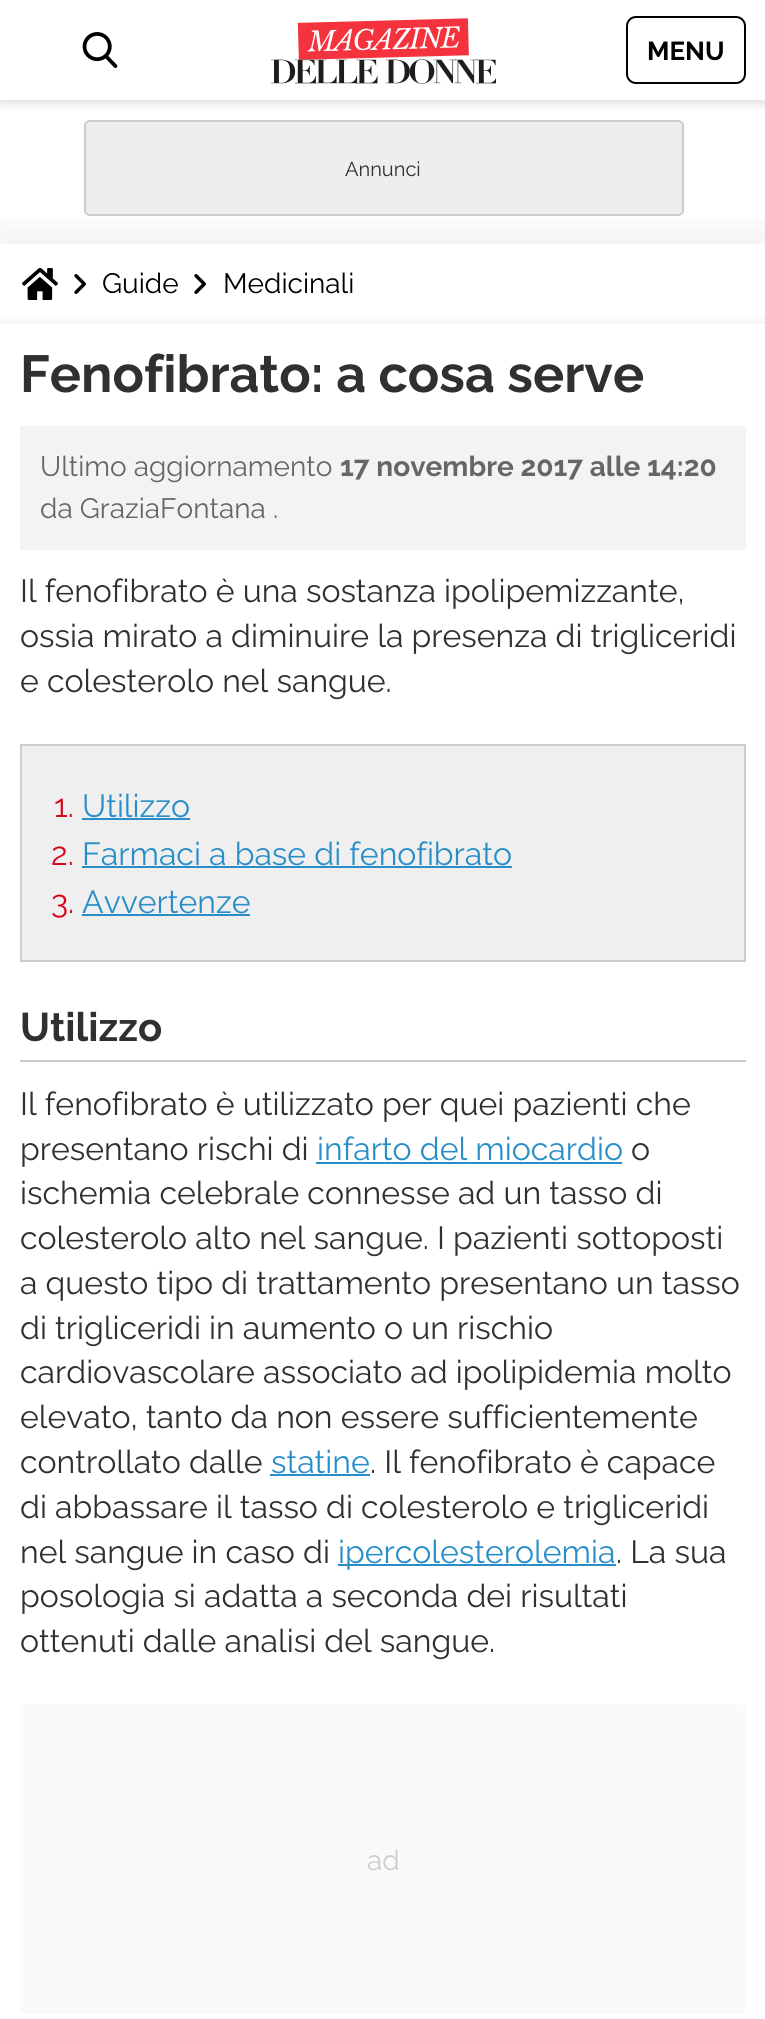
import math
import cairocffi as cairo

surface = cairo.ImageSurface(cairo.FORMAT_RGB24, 765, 2019)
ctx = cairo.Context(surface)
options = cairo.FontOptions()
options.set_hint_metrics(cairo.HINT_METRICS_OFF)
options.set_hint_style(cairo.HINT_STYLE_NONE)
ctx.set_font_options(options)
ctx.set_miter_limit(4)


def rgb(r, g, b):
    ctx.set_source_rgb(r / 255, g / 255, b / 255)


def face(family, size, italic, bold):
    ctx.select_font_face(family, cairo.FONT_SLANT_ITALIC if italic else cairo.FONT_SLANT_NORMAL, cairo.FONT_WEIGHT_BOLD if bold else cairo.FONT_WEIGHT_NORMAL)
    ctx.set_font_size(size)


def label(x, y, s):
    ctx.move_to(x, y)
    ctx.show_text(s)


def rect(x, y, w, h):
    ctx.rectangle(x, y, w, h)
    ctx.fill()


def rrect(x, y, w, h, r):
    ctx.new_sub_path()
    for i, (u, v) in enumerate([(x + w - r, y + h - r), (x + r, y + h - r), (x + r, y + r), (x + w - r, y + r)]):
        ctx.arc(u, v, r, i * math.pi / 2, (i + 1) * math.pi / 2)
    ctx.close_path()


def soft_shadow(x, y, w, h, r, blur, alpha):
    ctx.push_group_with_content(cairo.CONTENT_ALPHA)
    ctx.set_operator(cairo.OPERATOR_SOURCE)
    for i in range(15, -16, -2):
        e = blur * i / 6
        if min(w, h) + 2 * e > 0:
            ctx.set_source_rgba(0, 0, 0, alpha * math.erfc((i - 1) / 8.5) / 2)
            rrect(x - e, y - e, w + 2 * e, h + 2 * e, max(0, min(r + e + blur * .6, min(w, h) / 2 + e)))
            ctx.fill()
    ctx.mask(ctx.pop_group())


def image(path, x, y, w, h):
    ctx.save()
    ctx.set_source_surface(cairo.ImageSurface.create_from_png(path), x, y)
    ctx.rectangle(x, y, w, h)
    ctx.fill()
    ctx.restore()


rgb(255, 255, 255)
ctx.paint()
ctx.save()
ctx.rectangle(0, 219, 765, 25)
ctx.clip()
rgb(0, 0, 0)
soft_shadow(0, 244, 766, 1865, 0, 30, 0.1)
ctx.restore()
rgb(238, 238, 238)
rrect(85, 121, 598, 94, 5)
ctx.fill_preserve()
rgb(204, 204, 204)
ctx.stroke()
ctx.save()
ctx.rectangle(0, 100, 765, 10)
ctx.clip()
rgb(0, 0, 0)
soft_shadow(0, 0, 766, 100, 0, 8, 0.2)
ctx.restore()
image('image0.png', 82, 32, 36, 36)
image('image1.png', 271, 18, 225, 66)
rrect(627, 17, 118, 66, 9)
rgb(0, 0, 0)
ctx.stroke()
face('Raleway', 26, 0, 1)
label(647, 60, 'MENU')
face('Raleway', 20, 0, 0)
rgb(48, 48, 48)
label(345, 176, 'Annunci')
image('image2.png', 22, 268, 36, 32)
image('image3.png', 74, 274, 12, 20)
face('Raleway', 28, 0, 0)
rgb(0, 0, 0)
label(102, 293, 'Guide')
image('image3.png', 194, 274, 12, 20)
label(223, 293, 'Medicinali')
rgb(0, 0, 0)
soft_shadow(0, 324, 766, 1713, 0, 6, 0.1)
rgb(255, 255, 255)
rect(0, 324, 765, 1695)
face('Raleway', 52, 0, 1)
rgb(48, 48, 48)
label(20, 392, 'Fenofibrato: a cosa serve')
rgb(243, 243, 243)
rect(20, 426, 726, 124)
face('Raleway', 28, 0, 0)
rgb(102, 102, 102)
label(40, 476, 'Ultimo aggiornamento')
face('Raleway', 28, 0, 1)
label(340, 476, '17 novembre 2017 alle 14:20')
face('Raleway', 28, 0, 0)
label(40, 518, 'da GraziaFontana .')
face('Raleway', 32, 0, 0)
rgb(48, 48, 48)
label(20, 602, 'Il fenofibrato è una sostanza ipolipemizzante,')
label(20, 647, 'ossia mirato a diminuire la presenza di trigliceridi')
label(20, 692, 'e colesterolo nel sangue.')
rgb(239, 239, 239)
ctx.rectangle(21, 745, 724, 216)
ctx.fill_preserve()
rgb(204, 204, 204)
ctx.stroke()
rgb(214, 7, 27)
label(54, 817, '1.')
rgb(41, 142, 200)
label(82, 817, 'Utilizzo')
rect(82, 818, 108, 2)
rgb(214, 7, 27)
label(51, 865, '2.')
rgb(41, 142, 200)
label(82, 865, 'Farmaci a base di fenofibrato')
rect(82, 866, 430, 2)
rgb(214, 7, 27)
label(51, 913, '3.')
rgb(41, 142, 200)
label(82, 913, 'Avvertenze')
rect(82, 914, 168, 2)
rgb(204, 204, 204)
rect(20, 1060, 726, 2)
face('Raleway', 40, 0, 1)
rgb(48, 48, 48)
label(20, 1041, 'Utilizzo')
face('Raleway', 32, 0, 0)
label(20, 1115, 'Il fenofibrato è utilizzato per quei pazienti che')
label(20, 1160, 'presentano rischi di')
rgb(41, 142, 200)
label(317, 1160, 'infarto del miocardio')
rect(316, 1162, 306, 2)
rgb(48, 48, 48)
label(631, 1160, 'o')
label(20, 1204, 'ischemia celebrale connesse ad un tasso di')
label(20, 1249, 'colesterolo alto nel sangue. I pazienti sottoposti')
label(20, 1294, 'a questo tipo di trattamento presentano un tasso')
label(20, 1339, 'di trigliceridi in aumento o un rischio')
label(20, 1383, 'cardiovascolare associato ad ipolipidemia molto')
label(20, 1428, 'elevato, tanto da non essere sufficientemente')
label(20, 1473, 'controllato dalle')
rgb(41, 142, 200)
label(271, 1473, 'statine')
rect(270, 1474, 100, 2)
rgb(48, 48, 48)
label(370, 1473, '. Il fenofibrato è capace')
label(20, 1518, 'di abbassare il tasso di colesterolo e trigliceridi')
label(20, 1563, 'nel sangue in caso di')
rgb(41, 142, 200)
rect(338, 1564, 278, 2)
label(338, 1563, 'ipercolesterolemia')
rgb(48, 48, 48)
label(616, 1563, '. La sua')
label(20, 1607, 'posologia si adatta a seconda dei risultati')
label(20, 1652, 'ottenuti dalle analisi del sangue.')
rgb(250, 250, 250)
rrect(20, 1704, 726, 310, 6)
ctx.fill()
face('Raleway', 28, 0, 0)
rgb(204, 204, 204)
label(367, 1870, 'ad')
surface.write_to_png('render.png')
